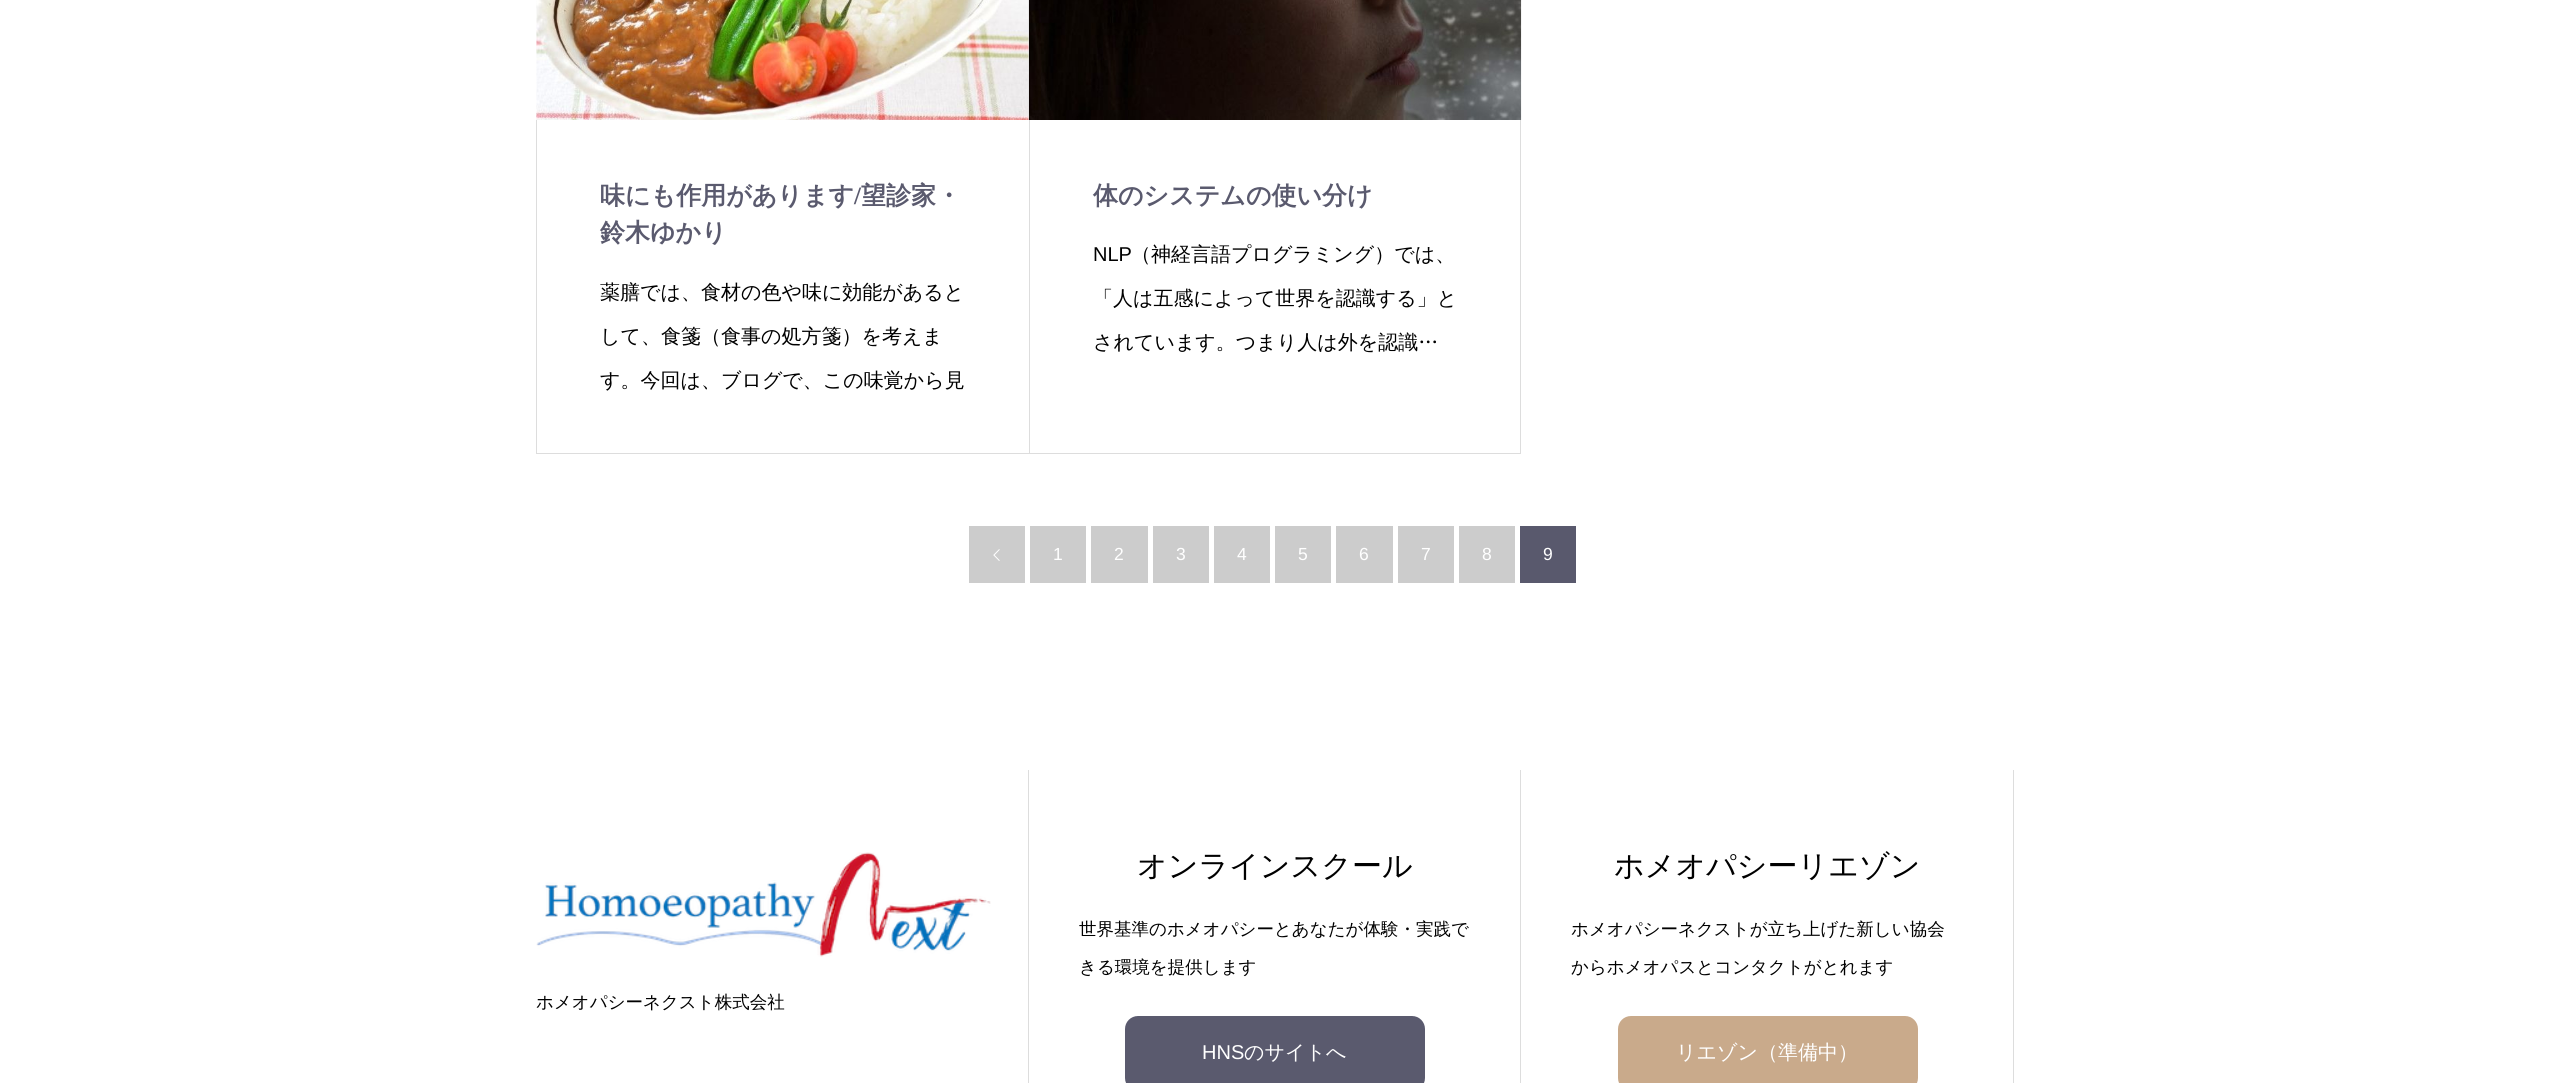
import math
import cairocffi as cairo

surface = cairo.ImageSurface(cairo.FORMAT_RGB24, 2549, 1083)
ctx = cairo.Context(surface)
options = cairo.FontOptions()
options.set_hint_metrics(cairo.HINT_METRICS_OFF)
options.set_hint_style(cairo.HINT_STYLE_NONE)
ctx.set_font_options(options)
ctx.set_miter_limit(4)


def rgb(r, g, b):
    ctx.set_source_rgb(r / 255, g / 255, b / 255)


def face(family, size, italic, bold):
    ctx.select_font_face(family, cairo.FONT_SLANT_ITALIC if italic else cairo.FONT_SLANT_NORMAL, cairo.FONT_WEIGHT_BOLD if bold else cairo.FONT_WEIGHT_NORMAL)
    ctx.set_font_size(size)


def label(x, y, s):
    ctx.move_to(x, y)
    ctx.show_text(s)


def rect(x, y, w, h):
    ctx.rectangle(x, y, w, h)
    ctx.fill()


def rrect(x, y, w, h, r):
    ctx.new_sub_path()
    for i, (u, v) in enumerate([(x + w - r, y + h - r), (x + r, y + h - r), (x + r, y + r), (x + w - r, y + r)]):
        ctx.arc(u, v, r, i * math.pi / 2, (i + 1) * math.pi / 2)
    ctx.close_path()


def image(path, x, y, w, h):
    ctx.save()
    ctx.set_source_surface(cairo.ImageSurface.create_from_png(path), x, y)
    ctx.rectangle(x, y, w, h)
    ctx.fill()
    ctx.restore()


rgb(255, 255, 255)
ctx.paint()
image('image0.png', 536, 0, 493, 120)
rgb(221, 221, 221)
rect(536, 453, 493, 1)
rect(536, 120, 1, 334)
face('WenQuanYi Zen Hei', 25, 0, 1)
rgb(90, 90, 110)
label(600, 204, '味にも作用があります')
face('Liberation Serif', 25, 0, 1)
label(854, 204, '/')
face('WenQuanYi Zen Hei', 25, 0, 1)
label(861, 204, '望診家・')
label(600, 241, '鈴木ゆかり')
face('WenQuanYi Zen Hei Medium', 20, 0, 0)
rgb(0, 0, 0)
label(600, 299, '薬膳では、食材の色や味に効能があると')
label(600, 343, 'して、食箋（食事の処方箋）を考えま')
label(600, 387, 'す。今回は、ブログで、この味覚から見')
image('image1.png', 1028, 0, 494, 120)
rgb(221, 221, 221)
rect(1520, 120, 1, 334)
rect(1029, 453, 492, 1)
rect(1029, 120, 1, 334)
face('WenQuanYi Zen Hei', 25, 0, 1)
rgb(90, 90, 110)
label(1093, 204, '体のシステムの使い分け')
face('Liberation Sans', 20, 0, 0)
rgb(0, 0, 0)
label(1093, 261, 'NLP')
face('WenQuanYi Zen Hei Medium', 20, 0, 0)
label(1131, 261, '（神経言語プログラミング）では、')
label(1093, 305, '「人は五感によって世界を認識する」と')
label(1093, 349, 'されています。つまり人は外を認識…')
rgb(204, 204, 204)
rect(969, 526, 56, 57)
image('image2.png', 993, 549, 7, 12)
rect(1030, 526, 56, 57)
face('Liberation Sans', 17.5, 0, 0)
rgb(255, 255, 255)
label(1053, 560, '1')
rgb(204, 204, 204)
rect(1091, 526, 57, 57)
rgb(255, 255, 255)
label(1114, 560, '2')
rgb(204, 204, 204)
rect(1153, 526, 56, 57)
rgb(255, 255, 255)
label(1176, 560, '3')
rgb(204, 204, 204)
rect(1214, 526, 56, 57)
rgb(255, 255, 255)
label(1237, 560, '4')
rgb(204, 204, 204)
rect(1275, 526, 56, 57)
rgb(255, 255, 255)
label(1298, 560, '5')
rgb(204, 204, 204)
rect(1336, 526, 57, 57)
rgb(255, 255, 255)
label(1359, 560, '6')
rgb(204, 204, 204)
rect(1398, 526, 56, 57)
rgb(255, 255, 255)
label(1421, 560, '7')
rgb(204, 204, 204)
rect(1459, 526, 56, 57)
rgb(255, 255, 255)
label(1482, 560, '8')
rgb(89, 89, 109)
rect(1520, 526, 56, 57)
rgb(255, 255, 255)
label(1543, 560, '9')
rgb(221, 221, 221)
rect(1028, 770, 1, 313)
image('image3.png', 536, 852, 455, 105)
face('WenQuanYi Zen Hei Medium', 17.5, 0, 0)
rgb(0, 0, 0)
label(536, 1008, 'ホメオパシーネクスト株式会社')
rgb(221, 221, 221)
rect(1520, 770, 1, 313)
face('WenQuanYi Zen Hei Medium', 30, 0, 0)
rgb(0, 0, 0)
label(1137, 876, 'オンラインスクール')
face('WenQuanYi Zen Hei Medium', 17.5, 0, 0)
label(1079, 935, '世界基準のホメオパシーとあなたが体験・実践で')
label(1079, 973, 'きる環境を提供します')
rgb(90, 90, 110)
rrect(1125, 1016, 300, 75, 13)
ctx.fill()
face('Liberation Sans', 20, 0, 0)
rgb(255, 255, 255)
label(1202, 1059, 'HNS')
face('WenQuanYi Zen Hei Medium', 20, 0, 0)
label(1244, 1059, 'のサイトへ')
rgb(221, 221, 221)
rect(2013, 770, 1, 313)
face('WenQuanYi Zen Hei Medium', 30, 0, 0)
rgb(0, 0, 0)
label(1614, 876, 'ホメオパシーリエゾン')
face('WenQuanYi Zen Hei Medium', 17.5, 0, 0)
label(1571, 935, 'ホメオパシーネクストが立ち上げた新しい協会')
label(1571, 973, 'からホメオパスとコンタクトがとれます')
rgb(201, 170, 139)
rrect(1618, 1016, 300, 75, 13)
ctx.fill()
face('WenQuanYi Zen Hei Medium', 20, 0, 0)
rgb(255, 255, 255)
label(1676, 1059, 'リエゾン（準備中）')
surface.write_to_png('render.png')
